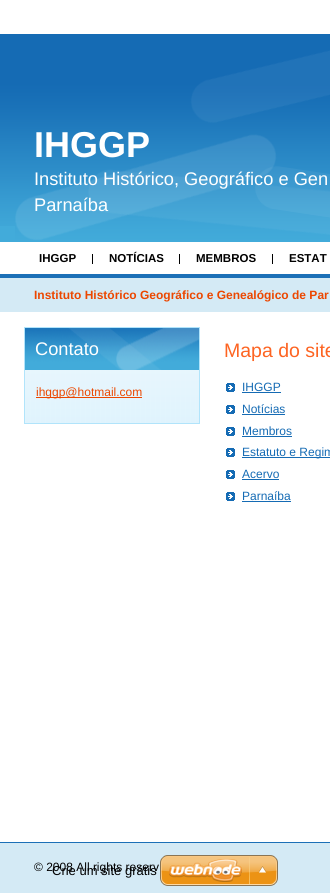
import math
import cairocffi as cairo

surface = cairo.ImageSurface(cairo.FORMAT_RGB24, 330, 893)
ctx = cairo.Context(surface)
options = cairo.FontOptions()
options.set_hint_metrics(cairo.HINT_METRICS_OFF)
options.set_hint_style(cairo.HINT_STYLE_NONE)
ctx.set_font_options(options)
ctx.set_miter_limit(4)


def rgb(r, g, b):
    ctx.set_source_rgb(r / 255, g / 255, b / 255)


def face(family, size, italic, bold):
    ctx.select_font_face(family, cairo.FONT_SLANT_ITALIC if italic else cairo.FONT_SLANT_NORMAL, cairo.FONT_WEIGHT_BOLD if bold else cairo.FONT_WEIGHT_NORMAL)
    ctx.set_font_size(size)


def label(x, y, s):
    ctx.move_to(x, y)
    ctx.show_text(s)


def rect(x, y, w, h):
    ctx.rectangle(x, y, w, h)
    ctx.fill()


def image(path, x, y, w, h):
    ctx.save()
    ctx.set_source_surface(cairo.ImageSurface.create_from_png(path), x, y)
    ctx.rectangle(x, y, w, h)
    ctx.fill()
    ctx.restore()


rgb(255, 255, 255)
ctx.paint()
rgb(66, 171, 218)
rect(0, 226, 330, 16)
image('image0.png', 0, 34, 330, 192)
image('image1.png', 15, 50, 315, 190)
face('Liberation Sans', 36, 0, 1)
rgb(255, 255, 255)
label(34, 157, 'IHGGP')
face('Liberation Sans', 18.25, 0, 0)
label(34, 185, 'Instituto Histórico, Geográfico e Gen')
label(34, 211, 'Parnaíba')
face('Liberation Sans', 11.5, 0, 1)
rgb(0, 0, 0)
label(39, 262, 'IHGGP')
rect(92, 254, 1, 10)
label(109, 262, 'NOTÍCIAS')
rect(179, 254, 1, 10)
label(196, 262, 'MEMBROS')
rect(272, 254, 1, 10)
label(289, 262, 'ESTAT')
rgb(212, 234, 245)
rect(0, 278, 330, 34)
rgb(28, 112, 183)
rect(0, 274, 330, 4)
face('Liberation Sans', 12, 0, 1)
rgb(236, 71, 0)
label(34, 299, 'Instituto Histórico Geográfico e Genealógico de Par')
image('image2.png', 25, 370, 174, 53)
ctx.rectangle(24.5, 327.5, 175, 96)
rgb(177, 228, 251)
ctx.set_line_width(1)
ctx.stroke()
image('image3.png', 25, 328, 174, 42)
face('Liberation Sans', 18.25, 0, 0)
rgb(255, 255, 255)
label(35, 355, 'Contato')
rgb(236, 71, 0)
rect(36, 397, 106, 1)
face('Liberation Sans', 12, 0, 0)
label(36, 396, 'ihggp@hotmail.com')
face('Liberation Sans', 19.5, 0, 0)
rgb(253, 100, 34)
label(224, 357, 'Mapa do site')
image('image4.png', 226, 383, 9, 9)
face('Liberation Sans', 12, 0, 0)
rgb(21, 107, 180)
label(242, 391, 'IHGGP')
rect(242, 392, 39, 1)
image('image4.png', 226, 405, 9, 9)
label(242, 413, 'Notícias')
rect(242, 414, 43, 1)
image('image4.png', 226, 427, 9, 9)
label(242, 435, 'Membros')
rect(242, 436, 50, 1)
image('image4.png', 226, 448, 9, 9)
rect(242, 457, 88, 1)
label(242, 456, 'Estatuto e Regim')
image('image4.png', 226, 470, 9, 9)
label(242, 478, 'Acervo')
rect(242, 479, 37, 1)
image('image4.png', 226, 492, 9, 9)
label(242, 500, 'Parnaíba')
rect(242, 501, 49, 1)
rgb(212, 234, 245)
rect(0, 843, 330, 50)
rgb(28, 112, 183)
rect(0, 842, 330, 1)
rgb(0, 0, 0)
label(34, 871, '© 2008 All rights reserv')
face('Liberation Sans', 13, 0, 0)
label(52, 875, 'Crie um site grátis')
image('image5.png', 160, 855, 118, 31)
surface.write_to_png('render.png')
